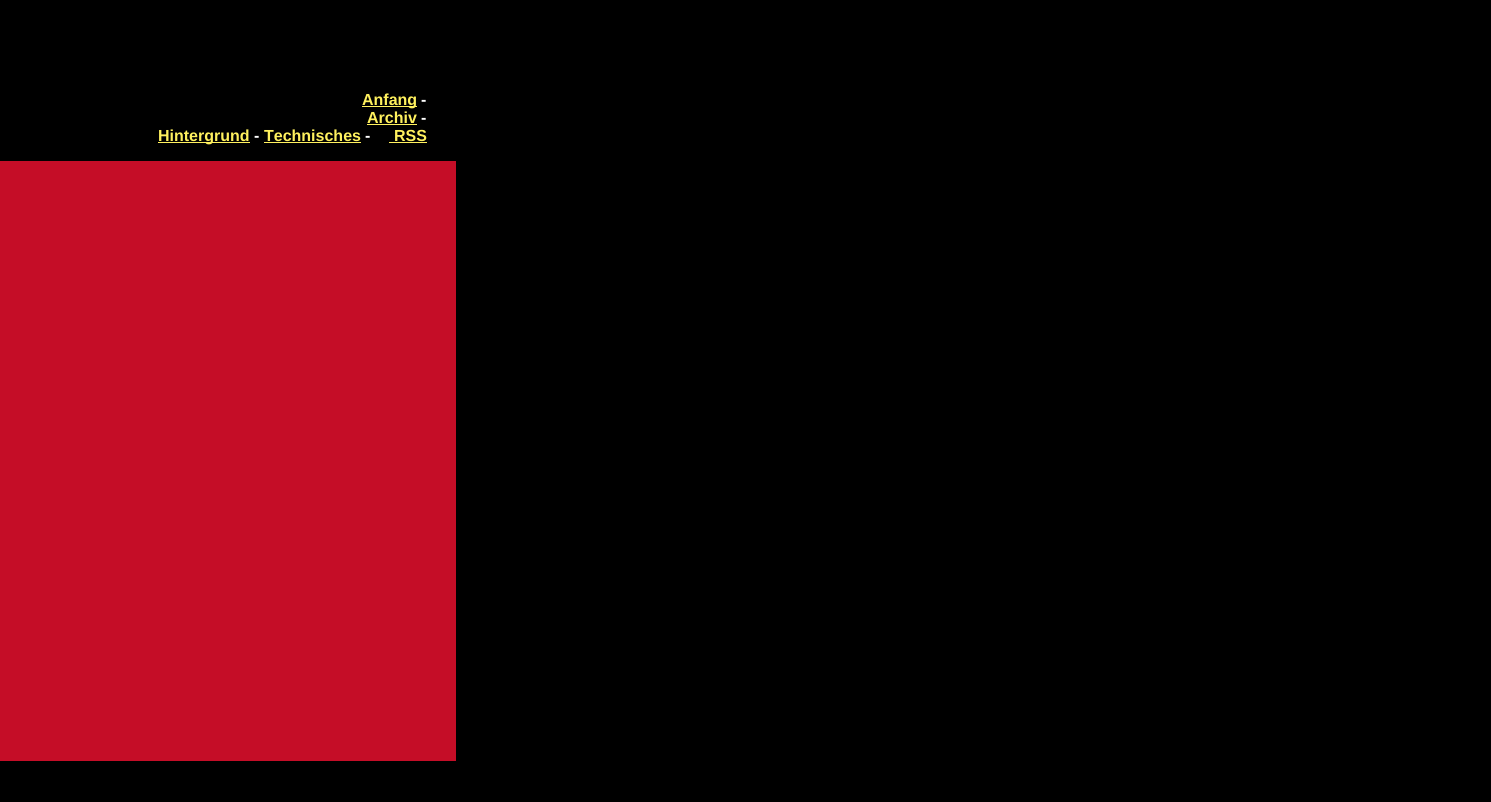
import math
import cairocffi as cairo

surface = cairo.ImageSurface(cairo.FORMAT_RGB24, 1491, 802)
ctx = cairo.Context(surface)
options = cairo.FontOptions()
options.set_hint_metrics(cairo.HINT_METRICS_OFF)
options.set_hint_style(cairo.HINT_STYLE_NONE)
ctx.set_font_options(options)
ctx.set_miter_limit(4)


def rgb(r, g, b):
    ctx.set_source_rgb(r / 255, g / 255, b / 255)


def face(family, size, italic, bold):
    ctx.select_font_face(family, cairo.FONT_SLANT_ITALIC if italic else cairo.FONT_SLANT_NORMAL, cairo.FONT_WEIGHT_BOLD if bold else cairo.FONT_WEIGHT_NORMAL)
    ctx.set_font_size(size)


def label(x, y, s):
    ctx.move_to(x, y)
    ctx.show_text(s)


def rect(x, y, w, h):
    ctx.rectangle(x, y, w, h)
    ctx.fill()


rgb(0, 0, 0)
ctx.paint()
rgb(255, 241, 94)
rect(362, 106, 55, 1)
face('Liberation Sans', 16, 0, 1)
label(362, 105, 'Anfang')
rgb(255, 255, 255)
label(421, 105, '-')
rgb(255, 241, 94)
label(367, 123, 'Archiv')
rect(367, 124, 50, 1)
rgb(255, 255, 255)
label(421, 123, '-')
rgb(255, 241, 94)
rect(158, 142, 92, 1)
label(158, 141, 'Hintergrund')
rgb(255, 255, 255)
label(254, 141, '-')
rgb(255, 241, 94)
label(264, 141, 'Technisches')
rect(264, 142, 97, 1)
rgb(255, 255, 255)
label(365, 141, '-')
rgb(255, 241, 94)
label(394, 141, 'RSS')
rect(389, 142, 38, 1)
rgb(197, 13, 39)
rect(0, 161, 456, 600)
surface.write_to_png('render.png')
